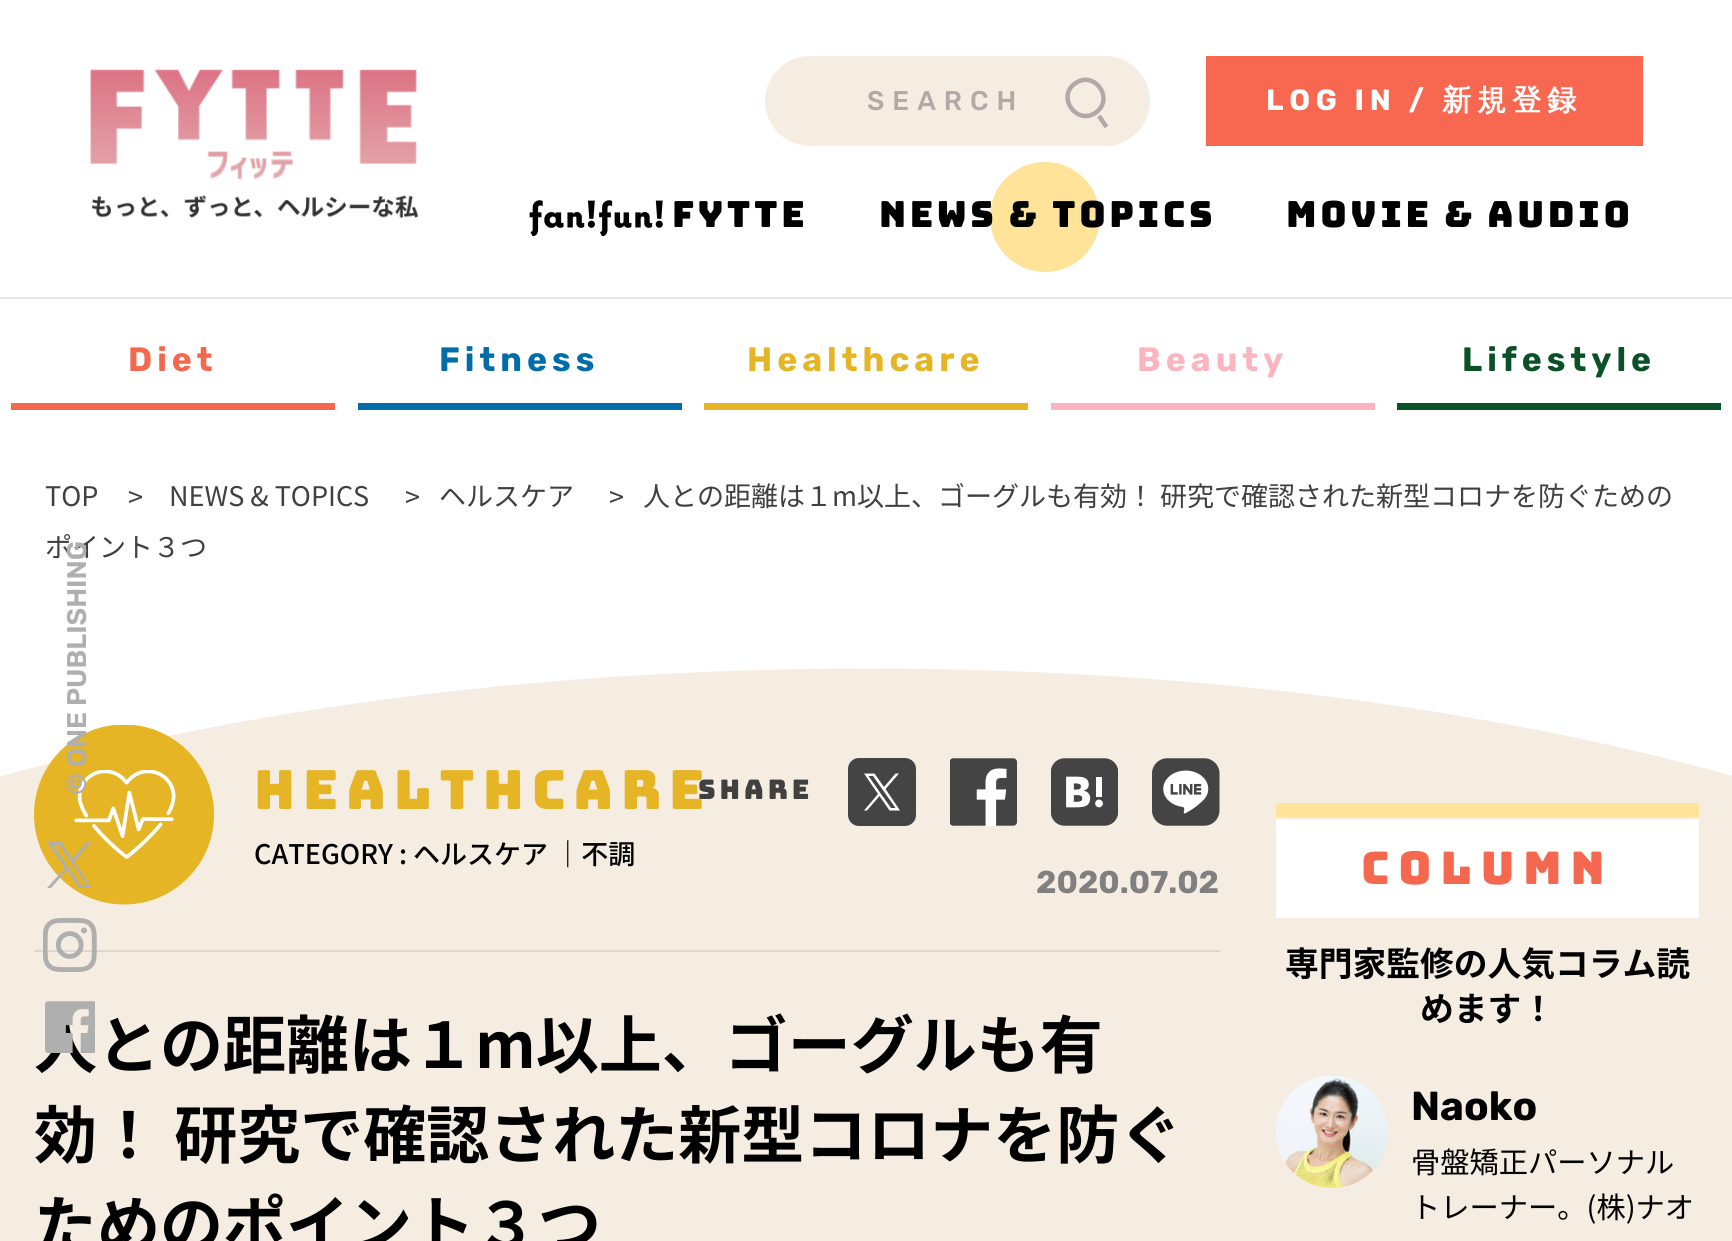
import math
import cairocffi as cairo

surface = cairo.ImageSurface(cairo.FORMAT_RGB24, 1732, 1241)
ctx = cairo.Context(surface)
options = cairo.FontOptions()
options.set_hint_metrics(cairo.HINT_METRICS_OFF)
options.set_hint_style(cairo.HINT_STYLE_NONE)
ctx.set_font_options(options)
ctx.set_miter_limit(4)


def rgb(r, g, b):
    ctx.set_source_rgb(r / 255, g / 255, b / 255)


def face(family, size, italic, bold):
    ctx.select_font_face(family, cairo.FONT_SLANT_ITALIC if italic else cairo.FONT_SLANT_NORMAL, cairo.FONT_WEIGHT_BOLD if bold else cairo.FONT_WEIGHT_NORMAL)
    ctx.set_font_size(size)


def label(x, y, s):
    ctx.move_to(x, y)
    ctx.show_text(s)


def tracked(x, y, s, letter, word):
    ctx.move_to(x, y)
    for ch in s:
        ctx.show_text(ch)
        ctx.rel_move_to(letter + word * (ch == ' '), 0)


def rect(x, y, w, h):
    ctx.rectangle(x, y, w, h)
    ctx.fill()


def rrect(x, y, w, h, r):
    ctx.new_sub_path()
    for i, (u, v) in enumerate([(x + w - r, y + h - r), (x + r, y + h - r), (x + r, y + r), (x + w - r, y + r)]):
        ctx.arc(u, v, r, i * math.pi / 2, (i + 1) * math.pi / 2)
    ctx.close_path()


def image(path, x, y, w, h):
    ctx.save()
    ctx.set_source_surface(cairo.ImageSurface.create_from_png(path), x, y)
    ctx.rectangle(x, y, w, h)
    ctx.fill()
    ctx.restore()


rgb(255, 255, 255)
ctx.paint()
rgb(230, 230, 230)
rect(0, 297, 1732, 2)
image('image0.png', 90, 69, 329, 150)
rgb(245, 237, 226)
rrect(765, 56, 385, 90, 45)
ctx.fill()
ctx.new_path()
ctx.move_to(1075, 83.5)
ctx.curve_to(1094, 69.5, 1115, 98.5, 1096, 112.5)
ctx.curve_to(1077, 126, 1056, 97, 1075, 83.5)
ctx.close_path()
ctx.move_to(1099, 116)
ctx.line_to(1106.5, 127)
rgb(181, 167, 167)
ctx.set_line_width(4.5)
ctx.stroke()
face('Rubik Medium', 27, 0, 0)
tracked(867, 110, 'SEARCH', 8, 0)
rgb(248, 104, 81)
rect(1206, 56, 437, 90)
face('Rubik', 29.25, 0, 1)
rgb(255, 255, 255)
tracked(1266, 110, 'LOG IN /', 5.75, 0)
face('WenQuanYi Zen Hei', 29.25, 0, 1)
tracked(1442, 110, '新規登録', 5.75, 0)
image('image1.png', 529, 200, 134, 36)
face('Bungee', 36, 0, 0)
rgb(0, 0, 0)
tracked(672, 227, 'FYTTE', 3.6, 0)
rgb(254, 227, 152)
ctx.new_path()
ctx.arc(1045, 217, 55, 0, 2 * math.pi)
ctx.fill()
rgb(0, 0, 0)
tracked(879, 227, 'NEWS & TOPICS', 3.6, 0)
tracked(1286, 227, 'MOVIE & AUDIO', 3.6, 0)
face('Noto Sans JP', 27, 0, 0)
rgb(64, 64, 64)
label(45, 557, 'ポイント３つ')
rgb(245, 237, 226)
ctx.new_path()
ctx.move_to(867.5, 668.5)
ctx.curve_to(1680.5, 668.5, 2340, 920.5, 2340, 1231)
ctx.curve_to(2340, 1541.5, 1680.5, 1793.5, 867.5, 1793.5)
ctx.curve_to(54.5, 1793.5, -605, 1541.5, -605, 1231)
ctx.curve_to(-605, 920.5, 54.5, 668.5, 867.5, 668.5)
ctx.close_path()
ctx.fill()
image('image4.png', 34, 725, 180, 180)
face('Rubik SemiBold', 27, 0, 0)
rgb(175, 175, 175)
ctx.save()
ctx.translate(86, 795)
ctx.rotate(-90 * math.pi / 180)
label(0, 0, '© ONE PUBLISHING')
ctx.restore()
ctx.new_path()
ctx.move_to(74, 862)
ctx.line_to(91, 842)
ctx.line_to(87, 842)
ctx.line_to(72, 859)
ctx.line_to(61, 842)
ctx.line_to(47, 842)
ctx.line_to(65, 868)
ctx.line_to(47, 888)
ctx.line_to(51, 888)
ctx.line_to(67, 870)
ctx.line_to(79, 888)
ctx.line_to(92, 888)
ctx.close_path()
ctx.move_to(69, 868)
ctx.line_to(53, 845)
ctx.line_to(59, 845)
ctx.line_to(87, 885)
ctx.line_to(81, 885)
ctx.close_path()
ctx.fill()
rgb(221, 215, 207)
rect(34, 950, 1186, 2)
image('image2.png', 43, 918, 54, 54)
face('Noto Sans JP', 63, 0, 1)
rgb(0, 0, 0)
label(34, 1068, '人との距離は１m以上、ゴーグルも有')
image('image3.png', 45, 1001, 50, 52)
rgb(245, 104, 80)
rect(11, 403, 324, 7)
face('Rubik', 33.75, 0, 1)
tracked(128, 371, 'Diet', 5, 0)
rgb(0, 108, 168)
rect(358, 403, 324, 7)
tracked(439, 371, 'Fitness', 5, 0)
rgb(229, 181, 38)
rect(704, 403, 324, 7)
tracked(747, 371, 'Healthcare', 5, 0)
rgb(251, 181, 193)
rect(1051, 403, 324, 7)
tracked(1137, 371, 'Beauty', 5, 0)
rgb(10, 81, 39)
rect(1397, 403, 324, 7)
tracked(1462, 371, 'Lifestyle', 5, 0)
face('Noto Sans JP', 27, 0, 0)
rgb(64, 64, 64)
label(45, 506, 'TOP')
label(128, 507, '>')
label(169, 506, 'NEWS & TOPICS')
label(405, 507, '>')
label(439, 506, 'ヘルスケア')
label(609, 507, '>')
label(643, 506, '人との距離は１m以上、ゴーグルも有効！ 研究で確認された新型コロナを防ぐための')
face('Bungee', 54, 0, 0)
rgb(229, 181, 38)
tracked(254, 809, 'Healthcare', 8, 0)
face('Noto Sans JP Medium', 27, 0, 0)
rgb(0, 0, 0)
label(254, 864, 'CATEGORY : ヘルスケア ｜不調')
face('Rubik', 31.5, 0, 1)
rgb(128, 128, 128)
label(1036, 893, '2020.07.02')
face('Bungee', 27, 0, 0)
rgb(64, 64, 64)
tracked(698, 799, 'Share', 4, 0)
rgb(68, 68, 68)
rrect(848, 758, 68, 68, 11)
ctx.fill()
rgb(255, 255, 255)
ctx.new_path()
ctx.move_to(885.5, 789)
ctx.line_to(899, 773.5)
ctx.line_to(895.5, 773.5)
ctx.line_to(884, 787)
ctx.line_to(874.5, 773.5)
ctx.line_to(864, 773.5)
ctx.line_to(878, 794)
ctx.line_to(864, 810.5)
ctx.line_to(867, 810.5)
ctx.line_to(879.5, 796)
ctx.line_to(889.5, 810.5)
ctx.line_to(900, 810.5)
ctx.close_path()
ctx.move_to(881, 794)
ctx.line_to(868.5, 776)
ctx.line_to(873, 776)
ctx.line_to(895.5, 808)
ctx.line_to(891, 808)
ctx.close_path()
ctx.fill()
image('image5.png', 950, 758, 67, 68)
image('image6.png', 1051, 758, 67, 68)
image('image7.png', 1152, 758, 68, 68)
face('Noto Sans JP', 63, 0, 1)
rgb(0, 0, 0)
label(34, 1158, '効！ 研究で確認された新型コロナを防ぐ')
label(34, 1248, 'ためのポイント３つ')
rgb(255, 255, 255)
rect(1276, 819, 423, 99)
rgb(254, 227, 152)
rect(1276, 803, 423, 14)
face('Bungee', 45, 0, 0)
rgb(245, 104, 80)
tracked(1361, 884, 'Column', 9, 0)
face('Noto Sans JP', 33.75, 0, 1)
rgb(0, 0, 0)
label(1285, 976, '専門家監修の人気コラム読')
label(1420, 1021, 'めます！')
image('image8.png', 1276, 1075, 112, 113)
face('Rubik', 40.5, 0, 1)
label(1411, 1120, 'Naoko')
face('Noto Sans JP', 29.25, 0, 0)
label(1411, 1173, '骨盤矯正パーソナル')
label(1411, 1218, 'トレーナー。(株)ナオ')
surface.write_to_png('render.png')
